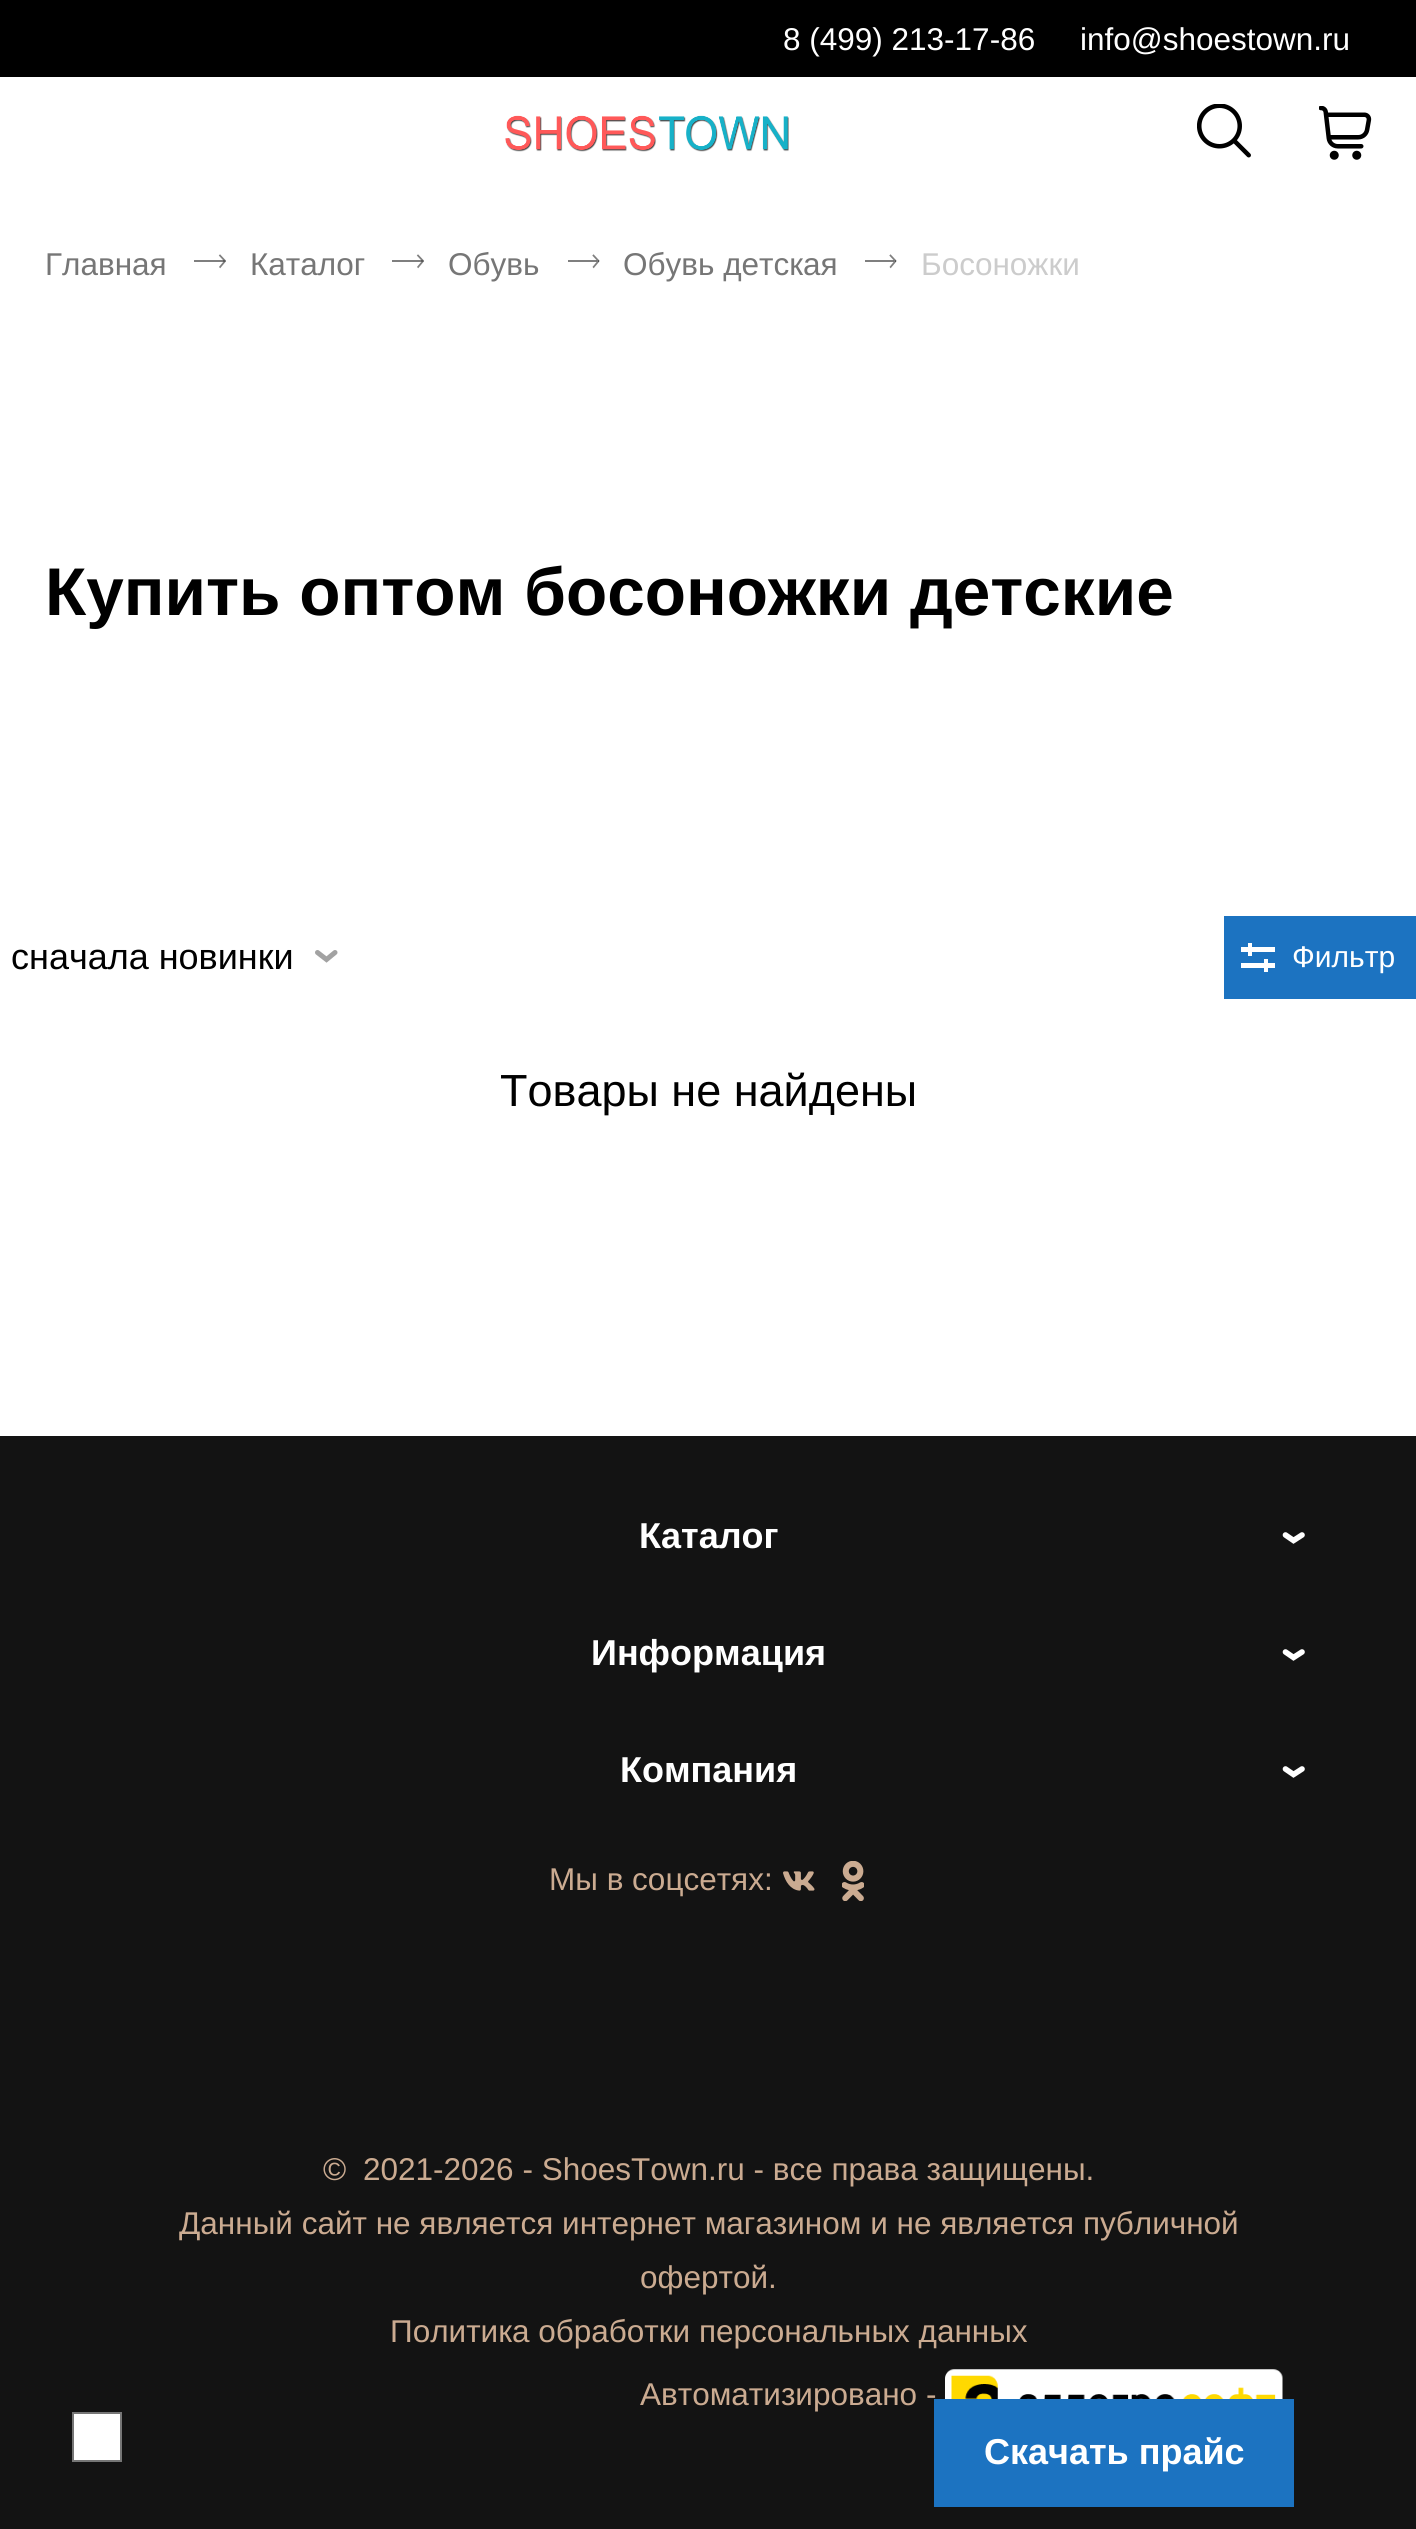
import math
import cairocffi as cairo

surface = cairo.ImageSurface(cairo.FORMAT_RGB24, 1416, 2529)
ctx = cairo.Context(surface)
options = cairo.FontOptions()
options.set_hint_metrics(cairo.HINT_METRICS_OFF)
options.set_hint_style(cairo.HINT_STYLE_NONE)
ctx.set_font_options(options)
ctx.set_miter_limit(4)


def rgb(r, g, b):
    ctx.set_source_rgb(r / 255, g / 255, b / 255)


def face(family, size, italic, bold):
    ctx.select_font_face(family, cairo.FONT_SLANT_ITALIC if italic else cairo.FONT_SLANT_NORMAL, cairo.FONT_WEIGHT_BOLD if bold else cairo.FONT_WEIGHT_NORMAL)
    ctx.set_font_size(size)


def label(x, y, s):
    ctx.move_to(x, y)
    ctx.show_text(s)


def rect(x, y, w, h):
    ctx.rectangle(x, y, w, h)
    ctx.fill()


def image(path, x, y, w, h):
    ctx.save()
    ctx.set_source_surface(cairo.ImageSurface.create_from_png(path), x, y)
    ctx.rectangle(x, y, w, h)
    ctx.fill()
    ctx.restore()


rgb(255, 255, 255)
ctx.paint()
rgb(0, 0, 0)
rect(0, 0, 1416, 77)
face('Liberation Sans', 31.5, 0, 0)
rgb(255, 255, 255)
label(783, 50, '8 (499) 213-17-86')
label(1080, 50, 'info@shoestown.ru')
image('image0.png', 505, 115, 284, 37)
image('image1.png', 1197, 104, 54, 54)
image('image2.png', 1319, 106, 53, 54)
rgb(118, 118, 118)
label(45, 275, 'Главная')
image('image3.png', 194, 254, 32, 15)
label(250, 275, 'Каталог')
image('image3.png', 392, 254, 32, 15)
label(448, 275, 'Обувь')
image('image4.png', 568, 254, 32, 15)
label(623, 275, 'Обувь детская')
image('image4.png', 865, 254, 32, 15)
rgb(204, 204, 204)
label(921, 275, 'Босоножки')
face('Liberation Sans', 67.5, 0, 1)
rgb(0, 0, 0)
label(45, 615, 'Купить оптом босоножки детские')
ctx.new_path()
ctx.move_to(335, 952.5)
ctx.line_to(326.5, 959.5)
ctx.line_to(317.5, 952.5)
rgb(162, 162, 162)
ctx.set_line_width(5)
ctx.set_line_cap(cairo.LINE_CAP_ROUND)
ctx.stroke()
face('Liberation Sans', 36, 0, 0)
rgb(0, 0, 0)
label(11, 969, 'сначала новинки')
rgb(28, 115, 193)
rect(1224, 916, 192, 83)
rgb(255, 255, 255)
rect(1241, 947, 34, 5)
rect(1241, 963, 34, 5)
rect(1248, 943, 4, 13)
rect(1264, 959, 4, 13)
face('Liberation Sans', 30, 0, 0)
label(1292, 967, 'Фильтр')
face('Liberation Sans', 45, 0, 0)
rgb(0, 0, 0)
label(500, 1106, 'Товары не найдены')
rgb(19, 19, 19)
rect(0, 1436, 1416, 1093)
face('Liberation Sans', 36, 0, 1)
rgb(255, 255, 255)
label(639, 1548, 'Каталог')
ctx.new_path()
ctx.move_to(1302, 1535)
ctx.line_to(1293.5, 1540.5)
ctx.line_to(1285.5, 1535)
ctx.set_line_width(5.6)
ctx.stroke()
label(591, 1665, 'Информация')
ctx.new_path()
ctx.move_to(1302, 1652)
ctx.line_to(1293.5, 1657.5)
ctx.line_to(1285.5, 1652)
ctx.stroke()
label(620, 1782, 'Компания')
ctx.new_path()
ctx.move_to(1302, 1769)
ctx.line_to(1293.5, 1774.5)
ctx.line_to(1285.5, 1769)
ctx.stroke()
face('Liberation Sans', 31.5, 0, 0)
rgb(203, 171, 145)
label(549, 1890, 'Мы в соцсетях:')
image('image5.png', 783, 1871, 32, 20)
image('image6.png', 842, 1861, 22, 40)
label(323, 2180, '©')
label(363, 2180, '2021-2026 - ShoesTown.ru - все права защищены.')
label(179, 2234, 'Данный сайт не является интернет магазином и не является публичной')
label(640, 2288, 'офертой.')
label(390, 2342, 'Политика обработки персональных данных')
label(640, 2405, 'Автоматизировано -')
image('image7.png', 945, 2369, 338, 30)
rgb(28, 115, 193)
rect(934, 2399, 360, 108)
face('Liberation Sans', 36, 0, 1)
rgb(255, 255, 255)
label(984, 2464, 'Скачать прайс')
ctx.rectangle(73, 2413, 48, 48)
ctx.fill_preserve()
rgb(118, 118, 118)
ctx.set_line_width(2)
ctx.set_line_cap(cairo.LINE_CAP_BUTT)
ctx.stroke()
surface.write_to_png('render.png')
